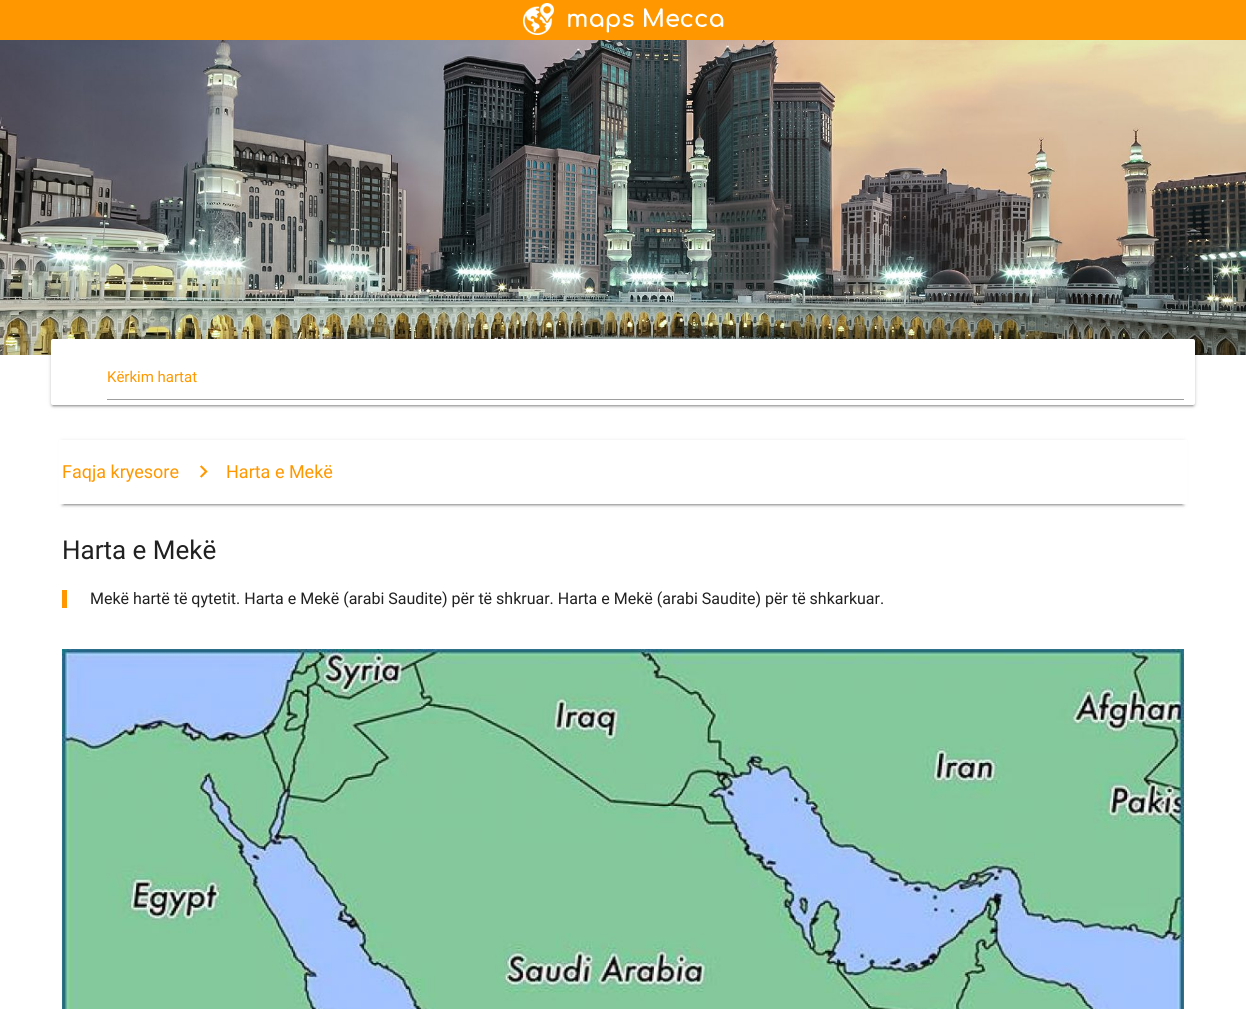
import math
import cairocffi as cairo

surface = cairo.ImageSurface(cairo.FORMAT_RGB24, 1246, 1009)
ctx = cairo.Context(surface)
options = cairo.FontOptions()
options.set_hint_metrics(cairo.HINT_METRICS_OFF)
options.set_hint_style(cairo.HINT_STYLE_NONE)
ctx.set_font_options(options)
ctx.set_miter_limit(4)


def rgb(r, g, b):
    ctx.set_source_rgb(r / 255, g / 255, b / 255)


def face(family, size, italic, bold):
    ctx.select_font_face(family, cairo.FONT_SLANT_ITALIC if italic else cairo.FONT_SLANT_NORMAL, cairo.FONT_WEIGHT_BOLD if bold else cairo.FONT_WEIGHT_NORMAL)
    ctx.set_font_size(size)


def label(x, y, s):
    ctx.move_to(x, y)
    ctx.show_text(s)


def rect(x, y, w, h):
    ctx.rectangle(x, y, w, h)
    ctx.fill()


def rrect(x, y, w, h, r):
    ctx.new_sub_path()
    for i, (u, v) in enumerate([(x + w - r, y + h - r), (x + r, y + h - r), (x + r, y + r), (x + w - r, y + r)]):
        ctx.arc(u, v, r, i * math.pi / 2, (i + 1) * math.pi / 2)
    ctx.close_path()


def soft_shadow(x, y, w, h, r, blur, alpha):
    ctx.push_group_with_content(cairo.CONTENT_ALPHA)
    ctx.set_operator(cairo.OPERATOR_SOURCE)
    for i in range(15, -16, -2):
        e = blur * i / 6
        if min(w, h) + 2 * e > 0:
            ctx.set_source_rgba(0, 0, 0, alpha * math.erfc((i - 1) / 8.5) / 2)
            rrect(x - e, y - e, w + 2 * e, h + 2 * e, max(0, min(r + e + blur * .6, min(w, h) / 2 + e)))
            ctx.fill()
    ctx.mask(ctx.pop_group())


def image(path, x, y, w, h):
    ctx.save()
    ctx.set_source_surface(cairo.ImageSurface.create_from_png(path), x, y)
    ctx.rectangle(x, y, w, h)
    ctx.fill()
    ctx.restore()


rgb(255, 255, 255)
ctx.paint()
rgb(255, 152, 0)
rect(0, 0, 1246, 40)
image('image0.png', 523, 3, 201, 32)
image('image1.png', 0, 40, 1246, 315)
rgb(0, 0, 0)
soft_shadow(53, 344, 1140, 62, 0, 0.5, 0.2)
soft_shadow(51, 340, 1144, 66, 2, 2.5, 0.12)
soft_shadow(51, 341, 1144, 66, 2, 1, 0.14)
rgb(255, 255, 255)
rrect(51, 339, 1144, 66, 2)
ctx.fill()
face('Roboto', 15, 0, 0)
rgb(255, 152, 0)
label(107, 382, 'Kërkim hartat')
rgb(158, 158, 158)
rect(107, 399, 1077, 1)
rgb(0, 0, 0)
soft_shadow(64, 445, 1118, 60, 0, 0.5, 0.2)
soft_shadow(62, 441, 1122, 64, 0, 2.5, 0.12)
soft_shadow(62, 442, 1122, 64, 0, 1, 0.14)
rgb(255, 255, 255)
rect(59, 440, 1128, 64)
face('Roboto', 18, 0, 0)
rgb(255, 152, 0)
label(62, 478, 'Faqja kryesore')
image('image2.png', 200, 465, 8, 13)
label(226, 478, 'Harta e Mekë')
face('Roboto', 26, 0, 0)
rgb(33, 33, 33)
label(62, 559, 'Harta e Mekë')
rgb(255, 152, 0)
rect(62, 590, 5, 18)
face('Roboto', 16, 0, 0)
rgb(33, 33, 33)
label(90, 604, 'Mekë hartë të qytetit. Harta e Mekë (arabi Saudite) për të shkruar. Harta e Mekë (arabi Saudite) për të shkarkuar.')
image('image3.png', 62, 649, 1122, 360)
surface.write_to_png('render.png')
